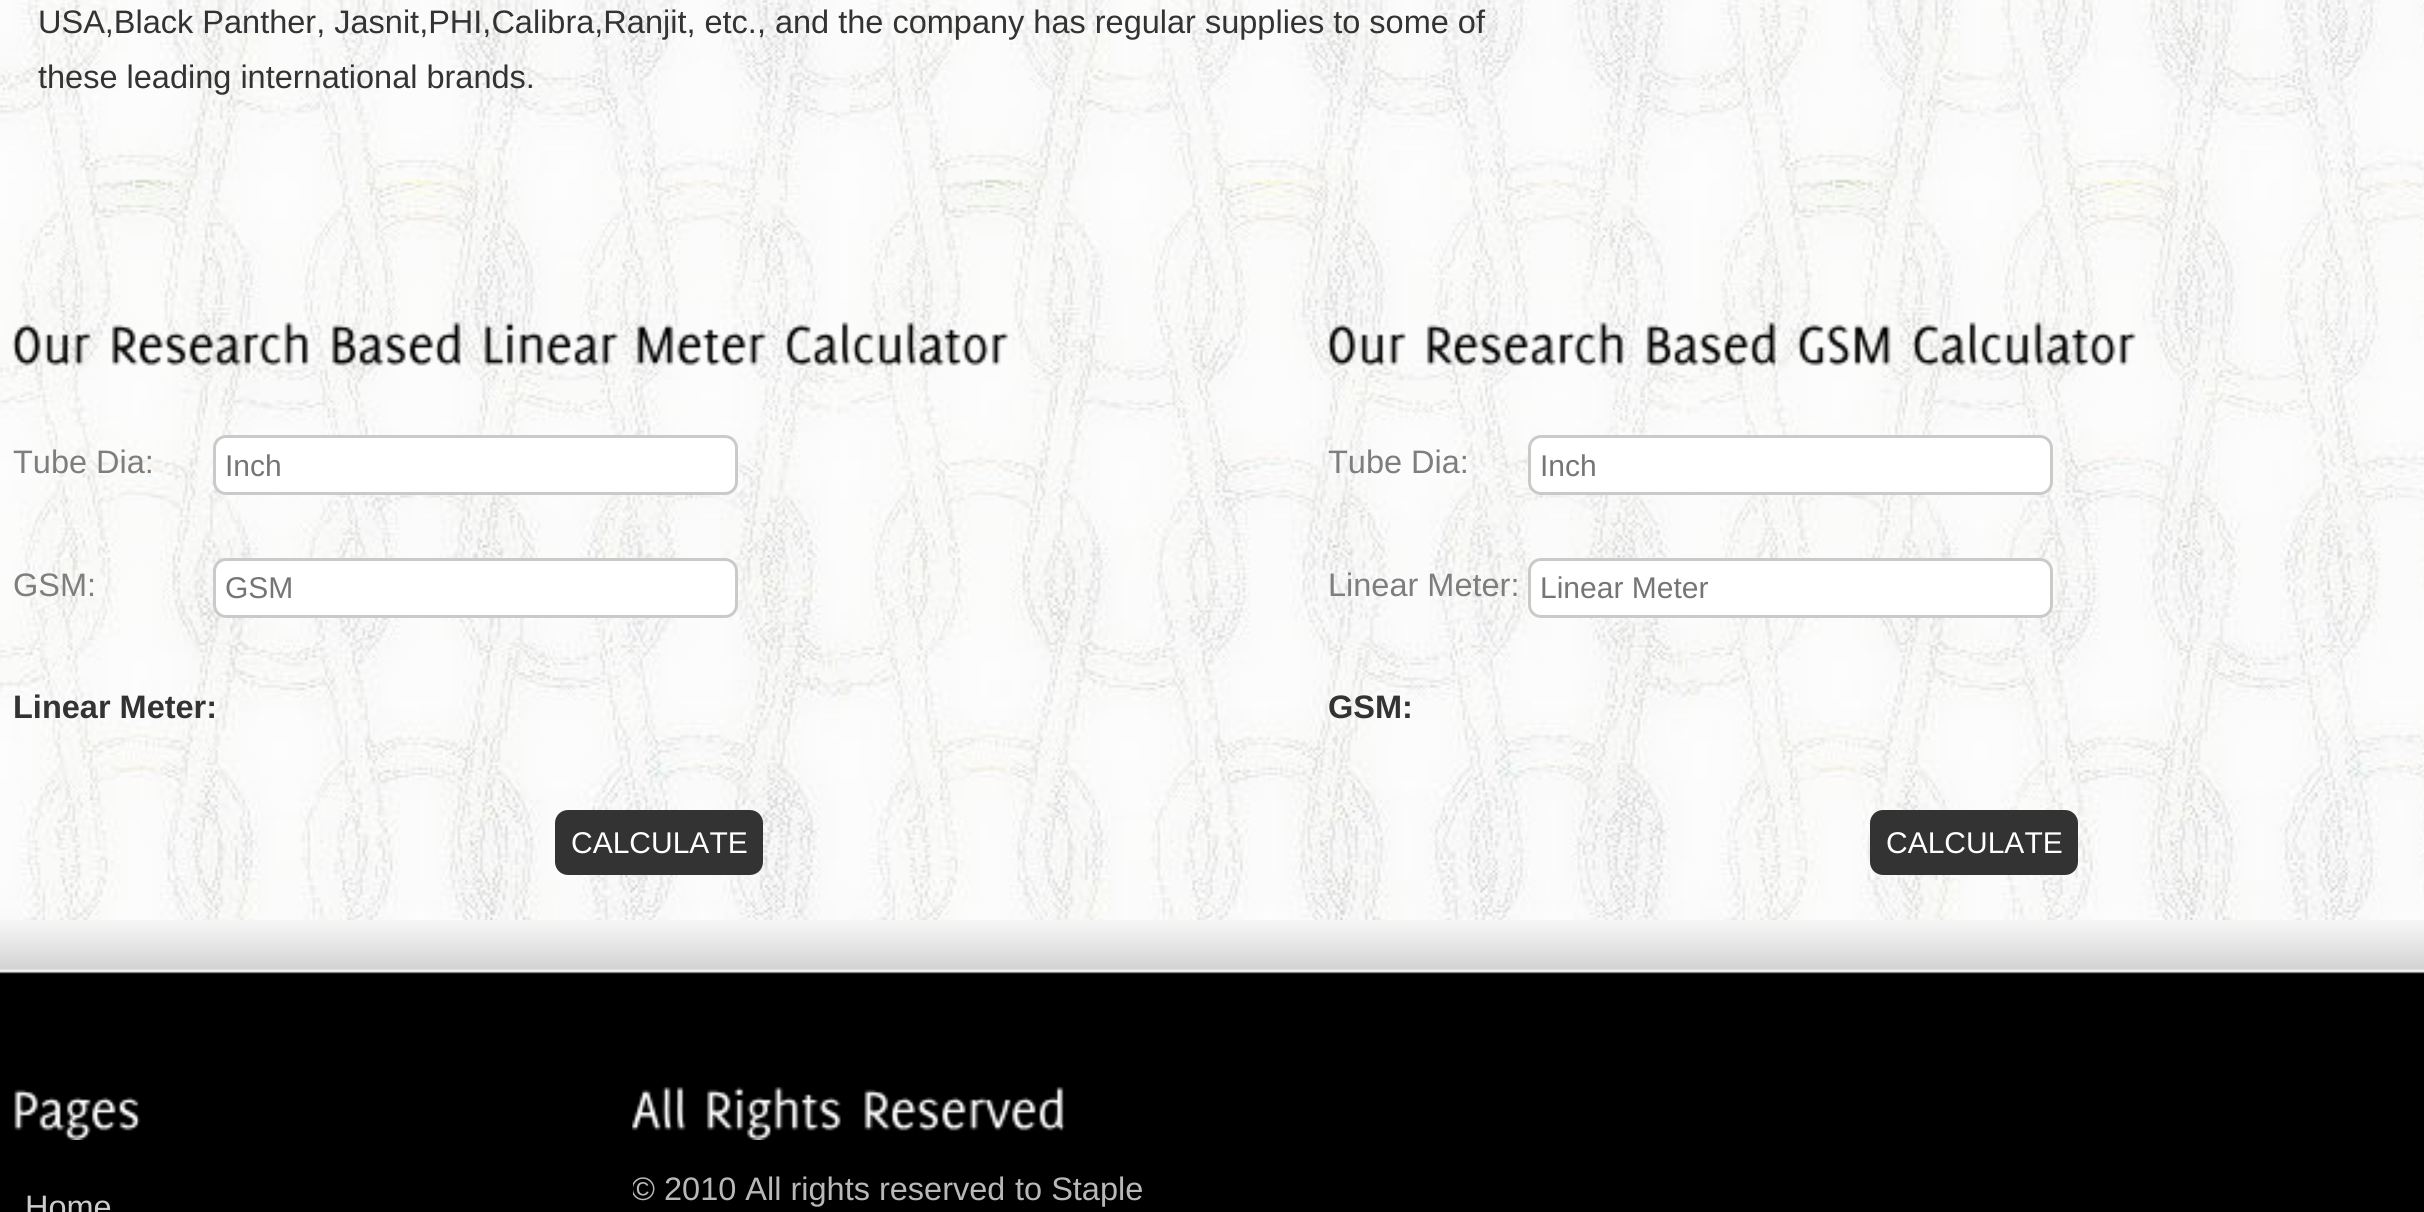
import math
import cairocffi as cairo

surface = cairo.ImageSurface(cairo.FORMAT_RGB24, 2424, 1212)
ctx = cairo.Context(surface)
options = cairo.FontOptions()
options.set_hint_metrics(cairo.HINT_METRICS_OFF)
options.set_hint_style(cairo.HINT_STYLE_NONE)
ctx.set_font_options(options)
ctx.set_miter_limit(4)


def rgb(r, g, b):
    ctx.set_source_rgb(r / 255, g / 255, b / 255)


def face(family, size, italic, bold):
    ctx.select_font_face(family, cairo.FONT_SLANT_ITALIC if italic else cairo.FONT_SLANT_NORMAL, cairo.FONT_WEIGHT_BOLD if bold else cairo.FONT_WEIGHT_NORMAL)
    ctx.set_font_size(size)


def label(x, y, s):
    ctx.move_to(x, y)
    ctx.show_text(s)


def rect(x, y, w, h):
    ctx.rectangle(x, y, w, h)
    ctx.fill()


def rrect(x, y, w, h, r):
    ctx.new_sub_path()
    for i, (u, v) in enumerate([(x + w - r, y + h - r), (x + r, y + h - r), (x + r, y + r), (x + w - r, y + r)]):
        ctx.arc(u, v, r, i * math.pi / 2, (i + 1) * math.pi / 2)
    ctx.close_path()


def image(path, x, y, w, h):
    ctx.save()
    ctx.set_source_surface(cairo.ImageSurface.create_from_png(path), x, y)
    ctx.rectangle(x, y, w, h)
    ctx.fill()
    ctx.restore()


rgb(255, 255, 255)
ctx.paint()
image('image0.png', 0, 0, 2424, 920)
face('Liberation Sans', 32.5, 0, 0)
rgb(51, 51, 51)
label(38, 33, 'USA,Black Panther, Jasnit,PHI,Calibra,Ranjit, etc., and the company has regular supplies to some of')
label(38, 88, 'these leading international brands.')
image('image1.png', 12, 324, 79, 42)
image('image2.png', 111, 321, 198, 45)
image('image3.png', 331, 321, 130, 45)
image('image4.png', 484, 322, 135, 44)
image('image5.png', 636, 324, 130, 42)
image('image6.png', 784, 321, 225, 45)
rgb(127, 126, 126)
label(13, 473, 'Tube Dia:')
rgb(255, 255, 255)
rrect(214.5, 436.5, 522, 57, 11.5)
ctx.fill_preserve()
rgb(202, 202, 202)
ctx.set_line_width(3)
ctx.stroke()
face('Liberation Sans', 30, 0, 0)
rgb(117, 117, 117)
label(225, 476, 'Inch')
face('Liberation Sans', 32.5, 0, 0)
rgb(127, 126, 126)
label(13, 596, 'GSM:')
rgb(255, 255, 255)
rrect(214.5, 559.5, 522, 57, 11.5)
ctx.fill_preserve()
rgb(202, 202, 202)
ctx.stroke()
face('Liberation Sans', 30, 0, 0)
rgb(117, 117, 117)
label(225, 598, 'GSM')
face('Liberation Sans', 32.5, 0, 1)
rgb(51, 51, 51)
label(13, 718, 'Linear Meter:')
rrect(555, 810, 208, 65, 13)
ctx.fill()
face('Liberation Sans', 30, 0, 0)
rgb(255, 255, 255)
label(571, 853, 'CALCULATE')
image('image7.png', 1327, 324, 79, 42)
image('image8.png', 1426, 321, 198, 45)
image('image9.png', 1646, 321, 130, 45)
image('image10.png', 1797, 324, 94, 42)
image('image11.png', 1912, 321, 224, 45)
face('Liberation Sans', 32.5, 0, 0)
rgb(127, 126, 126)
label(1328, 473, 'Tube Dia:')
rgb(255, 255, 255)
rrect(1529.5, 436.5, 522, 57, 11.5)
ctx.fill_preserve()
rgb(202, 202, 202)
ctx.stroke()
face('Liberation Sans', 30, 0, 0)
rgb(117, 117, 117)
label(1540, 476, 'Inch')
face('Liberation Sans', 32.5, 0, 0)
rgb(127, 126, 126)
label(1328, 596, 'Linear Meter:')
rgb(255, 255, 255)
rrect(1529.5, 559.5, 522, 57, 11.5)
ctx.fill_preserve()
rgb(202, 202, 202)
ctx.stroke()
face('Liberation Sans', 30, 0, 0)
rgb(117, 117, 117)
label(1540, 598, 'Linear Meter')
face('Liberation Sans', 32.5, 0, 1)
rgb(51, 51, 51)
label(1328, 718, 'GSM:')
rrect(1870, 810, 208, 65, 13)
ctx.fill()
face('Liberation Sans', 30, 0, 0)
rgb(255, 255, 255)
label(1886, 853, 'CALCULATE')
rgb(0, 0, 0)
rect(0, 974, 2424, 238)
image('image12.png', 0, 920, 2424, 54)
image('image13.png', 14, 1089, 127, 51)
face('Liberation Sans', 32.5, 0, 0)
rgb(204, 204, 204)
label(25, 1218, 'Home')
image('image14.png', 632, 1086, 54, 45)
image('image15.png', 706, 1086, 135, 54)
image('image16.png', 864, 1086, 202, 45)
ctx.save()
ctx.rectangle(633, 1083, 542, 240)
ctx.clip()
rgb(184, 184, 184)
label(631, 1200, '© 2010 All rights reserved')
ctx.restore()
rgb(184, 184, 184)
label(1015, 1200, 'to Staple')
surface.write_to_png('render.png')
